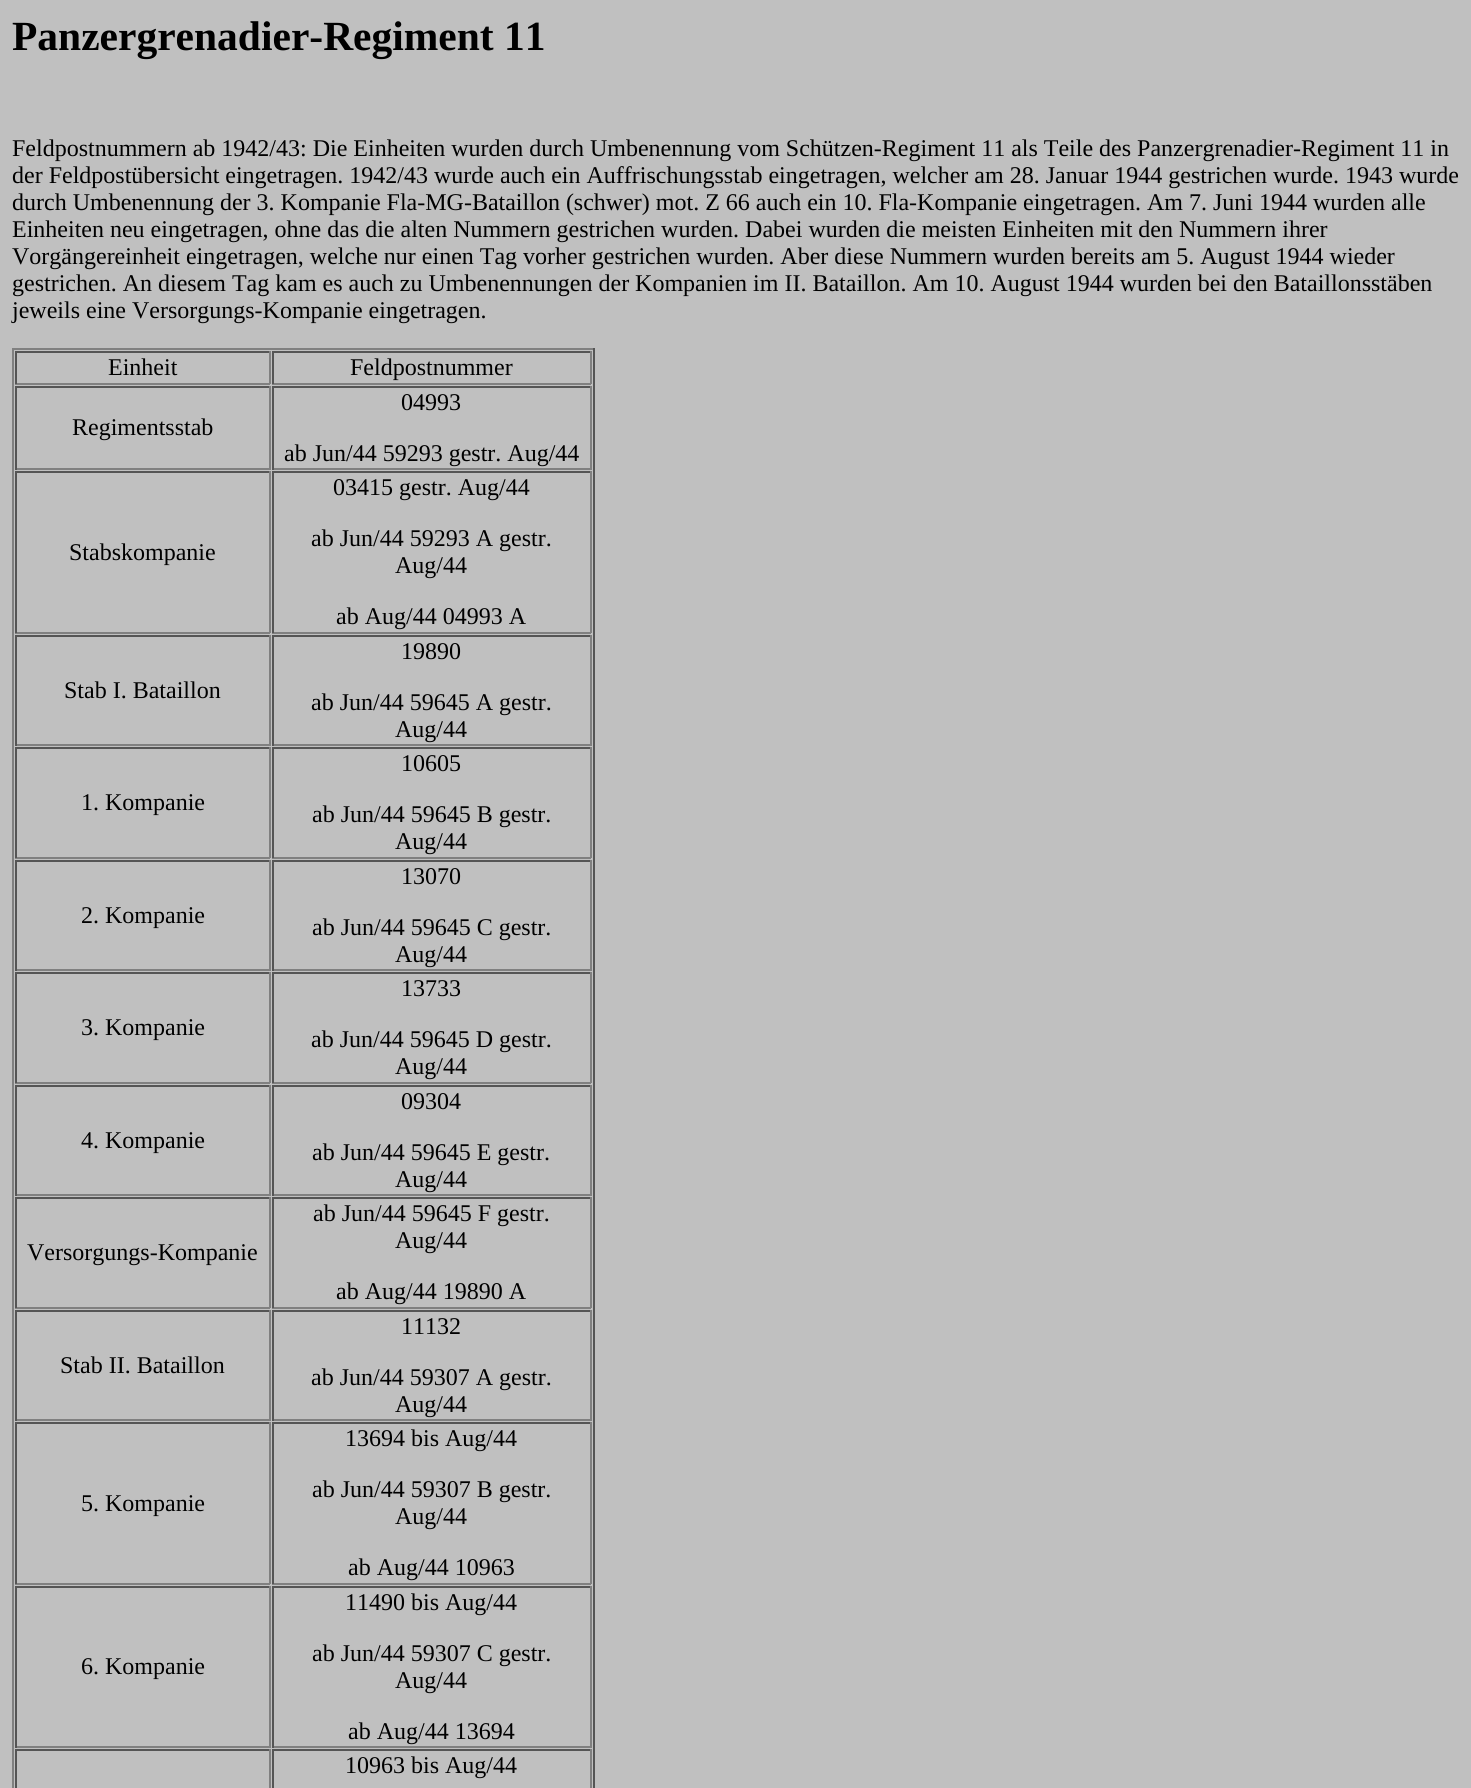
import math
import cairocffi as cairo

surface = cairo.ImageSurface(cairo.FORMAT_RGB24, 1471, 1788)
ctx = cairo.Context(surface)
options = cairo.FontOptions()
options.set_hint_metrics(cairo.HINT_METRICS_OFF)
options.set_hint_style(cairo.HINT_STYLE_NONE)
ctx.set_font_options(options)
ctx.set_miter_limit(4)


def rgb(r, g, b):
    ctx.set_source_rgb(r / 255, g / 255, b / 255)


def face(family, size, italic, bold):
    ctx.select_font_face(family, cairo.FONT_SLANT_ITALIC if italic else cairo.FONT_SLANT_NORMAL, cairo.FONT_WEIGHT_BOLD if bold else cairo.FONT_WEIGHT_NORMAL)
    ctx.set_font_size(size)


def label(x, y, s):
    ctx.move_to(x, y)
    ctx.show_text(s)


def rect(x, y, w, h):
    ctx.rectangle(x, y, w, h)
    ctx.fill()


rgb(192, 192, 192)
ctx.paint()
face('Liberation Serif', 41.5, 0, 1)
rgb(0, 0, 0)
label(12, 50, 'Panzergrenadier-Regiment 11')
face('Liberation Serif', 24, 0, 0)
label(12, 156, 'Feldpostnummern ab 1942/43: Die Einheiten wurden durch Umbenennung vom Schützen-Regiment 11 als Teile des Panzergrenadier-Regiment 11 in')
label(12, 183, 'der Feldpostübersicht eingetragen. 1942/43 wurde auch ein Auffrischungsstab eingetragen, welcher am 28. Januar 1944 gestrichen wurde. 1943 wurde')
label(12, 210, 'durch Umbenennung der 3. Kompanie Fla-MG-Bataillon (schwer) mot. Z 66 auch ein 10. Fla-Kompanie eingetragen. Am 7. Juni 1944 wurden alle')
label(12, 237, 'Einheiten neu eingetragen, ohne das die alten Nummern gestrichen wurden. Dabei wurden die meisten Einheiten mit den Nummern ihrer')
label(12, 264, 'Vorgängereinheit eingetragen, welche nur einen Tag vorher gestrichen wurden. Aber diese Nummern wurden bereits am 5. August 1944 wieder')
label(12, 291, 'gestrichen. An diesem Tag kam es auch zu Umbenennungen der Kompanien im II. Bataillon. Am 10. August 1944 wurden bei den Bataillonsstäben')
label(12, 318, 'jeweils eine Versorgungs-Kompanie eingetragen.')
rgb(128, 128, 128)
rect(12, 348, 582, 2)
rgb(85, 85, 85)
rect(593, 348, 2, 1440)
rgb(128, 128, 128)
rect(12, 348, 2, 1440)
rgb(85, 85, 85)
rect(15, 351, 255, 2)
rgb(128, 128, 128)
rect(269, 351, 2, 33)
rect(15, 383, 255, 2)
rgb(85, 85, 85)
rect(15, 351, 2, 33)
rgb(0, 0, 0)
label(108, 375, 'Einheit')
rgb(85, 85, 85)
rect(272, 351, 319, 2)
rgb(128, 128, 128)
rect(590, 351, 2, 33)
rect(272, 383, 319, 2)
rgb(85, 85, 85)
rect(272, 351, 2, 33)
rgb(0, 0, 0)
label(350, 375, 'Feldpostnummer')
rgb(85, 85, 85)
rect(15, 386, 255, 2)
rgb(128, 128, 128)
rect(269, 386, 2, 84)
rect(15, 468, 255, 2)
rgb(85, 85, 85)
rect(15, 386, 2, 84)
rgb(0, 0, 0)
label(72, 435, 'Regimentsstab')
rgb(85, 85, 85)
rect(272, 386, 319, 2)
rgb(128, 128, 128)
rect(590, 386, 2, 84)
rect(272, 468, 319, 2)
rgb(85, 85, 85)
rect(272, 386, 2, 84)
rgb(0, 0, 0)
label(401, 410, '04993')
label(284, 461, 'ab Jun/44 59293 gestr. Aug/44')
rgb(85, 85, 85)
rect(15, 471, 255, 2)
rgb(128, 128, 128)
rect(269, 471, 2, 162)
rect(15, 632, 255, 2)
rgb(85, 85, 85)
rect(15, 471, 2, 162)
rgb(0, 0, 0)
label(69, 560, 'Stabskompanie')
rgb(85, 85, 85)
rect(272, 471, 319, 2)
rgb(128, 128, 128)
rect(590, 471, 2, 162)
rect(272, 632, 319, 2)
rgb(85, 85, 85)
rect(272, 471, 2, 162)
rgb(0, 0, 0)
label(333, 495, '03415 gestr. Aug/44')
label(311, 546, 'ab Jun/44 59293 A gestr.')
label(395, 573, 'Aug/44')
label(336, 624, 'ab Aug/44 04993 A')
rgb(85, 85, 85)
rect(15, 635, 255, 2)
rgb(128, 128, 128)
rect(269, 635, 2, 111)
rect(15, 744, 255, 2)
rgb(85, 85, 85)
rect(15, 635, 2, 111)
rgb(0, 0, 0)
label(64, 698, 'Stab I. Bataillon')
rgb(85, 85, 85)
rect(272, 635, 319, 2)
rgb(128, 128, 128)
rect(590, 635, 2, 111)
rect(272, 744, 319, 2)
rgb(85, 85, 85)
rect(272, 635, 2, 111)
rgb(0, 0, 0)
label(401, 659, '19890')
label(311, 710, 'ab Jun/44 59645 A gestr.')
label(395, 737, 'Aug/44')
rgb(85, 85, 85)
rect(15, 747, 255, 2)
rgb(128, 128, 128)
rect(269, 747, 2, 111)
rect(15, 857, 255, 2)
rgb(85, 85, 85)
rect(15, 747, 2, 111)
rgb(0, 0, 0)
label(81, 810, '1. Kompanie')
rgb(85, 85, 85)
rect(272, 747, 319, 2)
rgb(128, 128, 128)
rect(590, 747, 2, 111)
rect(272, 857, 319, 2)
rgb(85, 85, 85)
rect(272, 747, 2, 111)
rgb(0, 0, 0)
label(401, 771, '10605')
label(312, 822, 'ab Jun/44 59645 B gestr.')
label(395, 849, 'Aug/44')
rgb(85, 85, 85)
rect(15, 860, 255, 2)
rgb(128, 128, 128)
rect(269, 860, 2, 111)
rect(15, 969, 255, 2)
rgb(85, 85, 85)
rect(15, 860, 2, 111)
rgb(0, 0, 0)
label(81, 923, '2. Kompanie')
rgb(85, 85, 85)
rect(272, 860, 319, 2)
rgb(128, 128, 128)
rect(590, 860, 2, 111)
rect(272, 969, 319, 2)
rgb(85, 85, 85)
rect(272, 860, 2, 111)
rgb(0, 0, 0)
label(401, 884, '13070')
label(312, 935, 'ab Jun/44 59645 C gestr.')
label(395, 962, 'Aug/44')
rgb(85, 85, 85)
rect(15, 972, 255, 2)
rgb(128, 128, 128)
rect(269, 972, 2, 111)
rect(15, 1082, 255, 2)
rgb(85, 85, 85)
rect(15, 972, 2, 111)
rgb(0, 0, 0)
label(81, 1035, '3. Kompanie')
rgb(85, 85, 85)
rect(272, 972, 319, 2)
rgb(128, 128, 128)
rect(590, 972, 2, 111)
rect(272, 1082, 319, 2)
rgb(85, 85, 85)
rect(272, 972, 2, 111)
rgb(0, 0, 0)
label(401, 996, '13733')
label(311, 1047, 'ab Jun/44 59645 D gestr.')
label(395, 1074, 'Aug/44')
rgb(85, 85, 85)
rect(15, 1085, 255, 2)
rgb(128, 128, 128)
rect(269, 1085, 2, 111)
rect(15, 1194, 255, 2)
rgb(85, 85, 85)
rect(15, 1085, 2, 111)
rgb(0, 0, 0)
label(81, 1148, '4. Kompanie')
rgb(85, 85, 85)
rect(272, 1085, 319, 2)
rgb(128, 128, 128)
rect(590, 1085, 2, 111)
rect(272, 1194, 319, 2)
rgb(85, 85, 85)
rect(272, 1085, 2, 111)
rgb(0, 0, 0)
label(401, 1109, '09304')
label(312, 1160, 'ab Jun/44 59645 E gestr.')
label(395, 1187, 'Aug/44')
rgb(85, 85, 85)
rect(15, 1197, 255, 2)
rgb(128, 128, 128)
rect(269, 1197, 2, 111)
rect(15, 1307, 255, 2)
rgb(85, 85, 85)
rect(15, 1197, 2, 111)
rgb(0, 0, 0)
label(27, 1260, 'Versorgungs-Kompanie')
rgb(85, 85, 85)
rect(272, 1197, 319, 2)
rgb(128, 128, 128)
rect(590, 1197, 2, 111)
rect(272, 1307, 319, 2)
rgb(85, 85, 85)
rect(272, 1197, 2, 111)
rgb(0, 0, 0)
label(313, 1221, 'ab Jun/44 59645 F gestr.')
label(395, 1248, 'Aug/44')
label(336, 1299, 'ab Aug/44 19890 A')
rgb(85, 85, 85)
rect(15, 1310, 255, 2)
rgb(128, 128, 128)
rect(269, 1310, 2, 111)
rect(15, 1419, 255, 2)
rgb(85, 85, 85)
rect(15, 1310, 2, 111)
rgb(0, 0, 0)
label(60, 1373, 'Stab II. Bataillon')
rgb(85, 85, 85)
rect(272, 1310, 319, 2)
rgb(128, 128, 128)
rect(590, 1310, 2, 111)
rect(272, 1419, 319, 2)
rgb(85, 85, 85)
rect(272, 1310, 2, 111)
rgb(0, 0, 0)
label(401, 1334, '11132')
label(311, 1385, 'ab Jun/44 59307 A gestr.')
label(395, 1412, 'Aug/44')
rgb(85, 85, 85)
rect(15, 1422, 255, 2)
rgb(128, 128, 128)
rect(269, 1422, 2, 162)
rect(15, 1583, 255, 2)
rgb(85, 85, 85)
rect(15, 1422, 2, 162)
rgb(0, 0, 0)
label(81, 1511, '5. Kompanie')
rgb(85, 85, 85)
rect(272, 1422, 319, 2)
rgb(128, 128, 128)
rect(590, 1422, 2, 162)
rect(272, 1583, 319, 2)
rgb(85, 85, 85)
rect(272, 1422, 2, 162)
rgb(0, 0, 0)
label(345, 1446, '13694 bis Aug/44')
label(312, 1497, 'ab Jun/44 59307 B gestr.')
label(395, 1524, 'Aug/44')
label(348, 1575, 'ab Aug/44 10963')
rgb(85, 85, 85)
rect(15, 1586, 255, 2)
rgb(128, 128, 128)
rect(269, 1586, 2, 162)
rect(15, 1746, 255, 2)
rgb(85, 85, 85)
rect(15, 1586, 2, 162)
rgb(0, 0, 0)
label(81, 1674, '6. Kompanie')
rgb(85, 85, 85)
rect(272, 1586, 319, 2)
rgb(128, 128, 128)
rect(590, 1586, 2, 162)
rect(272, 1746, 319, 2)
rgb(85, 85, 85)
rect(272, 1586, 2, 162)
rgb(0, 0, 0)
label(345, 1610, '11490 bis Aug/44')
label(312, 1661, 'ab Jun/44 59307 C gestr.')
label(395, 1688, 'Aug/44')
label(348, 1739, 'ab Aug/44 13694')
rgb(85, 85, 85)
rect(15, 1749, 255, 2)
rgb(128, 128, 128)
rect(269, 1749, 2, 39)
rgb(85, 85, 85)
rect(15, 1749, 2, 39)
rect(272, 1749, 319, 2)
rgb(128, 128, 128)
rect(590, 1749, 2, 39)
rgb(85, 85, 85)
rect(272, 1749, 2, 39)
rgb(0, 0, 0)
label(345, 1773, '10963 bis Aug/44')
surface.write_to_png('render.png')
